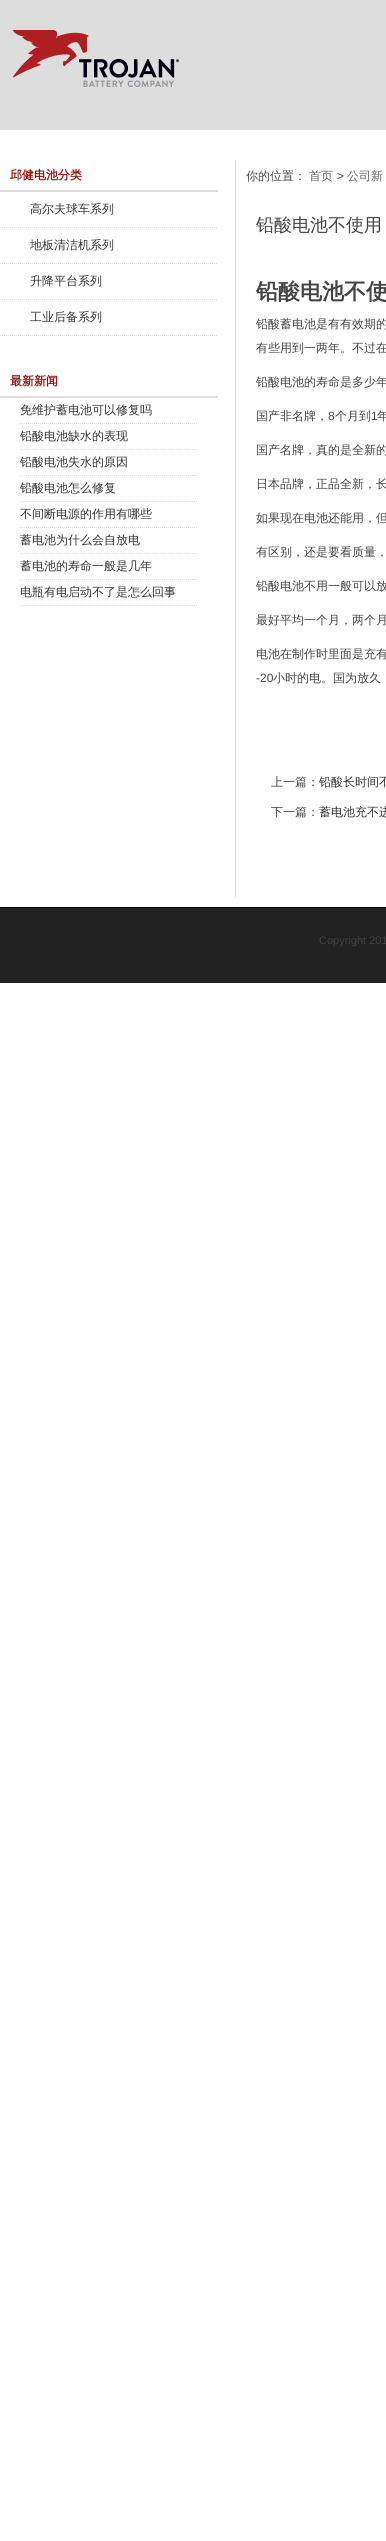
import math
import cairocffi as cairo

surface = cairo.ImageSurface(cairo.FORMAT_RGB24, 386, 2541)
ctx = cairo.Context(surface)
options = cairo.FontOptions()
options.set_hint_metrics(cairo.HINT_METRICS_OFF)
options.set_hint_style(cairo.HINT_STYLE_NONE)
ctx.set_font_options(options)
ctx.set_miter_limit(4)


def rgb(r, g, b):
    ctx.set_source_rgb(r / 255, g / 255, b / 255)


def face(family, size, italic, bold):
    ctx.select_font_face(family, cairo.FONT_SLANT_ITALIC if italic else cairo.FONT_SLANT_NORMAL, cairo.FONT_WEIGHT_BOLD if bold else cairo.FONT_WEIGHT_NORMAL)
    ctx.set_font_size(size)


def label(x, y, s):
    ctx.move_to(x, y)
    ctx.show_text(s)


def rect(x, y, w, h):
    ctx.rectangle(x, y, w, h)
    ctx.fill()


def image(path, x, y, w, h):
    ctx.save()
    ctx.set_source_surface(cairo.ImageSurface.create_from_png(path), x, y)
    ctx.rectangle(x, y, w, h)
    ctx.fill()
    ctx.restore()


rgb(255, 255, 255)
ctx.paint()
rgb(221, 221, 221)
rect(0, 0, 386, 130)
image('image0.png', 13, 30, 166, 57)
rect(0, 190, 218, 2)
face('WenQuanYi Zen Hei', 12, 0, 1)
rgb(147, 25, 22)
label(10, 179, '邱健电池分类')
ctx.new_path()
ctx.move_to(0, 227.5)
ctx.line_to(218, 227.5)
rgb(221, 221, 221)
ctx.set_line_width(1)
ctx.set_dash([1, 1])
ctx.stroke()
face('WenQuanYi Zen Hei Medium', 12, 0, 0)
rgb(51, 51, 51)
label(30, 213, '高尔夫球车系列')
ctx.new_path()
ctx.move_to(0, 263.5)
ctx.line_to(218, 263.5)
rgb(221, 221, 221)
ctx.stroke()
rgb(51, 51, 51)
label(30, 249, '地板清洁机系列')
ctx.new_path()
ctx.move_to(0, 299.5)
ctx.line_to(218, 299.5)
rgb(221, 221, 221)
ctx.stroke()
rgb(51, 51, 51)
label(30, 285, '升降平台系列')
ctx.new_path()
ctx.move_to(0, 335.5)
ctx.line_to(218, 335.5)
rgb(221, 221, 221)
ctx.stroke()
rgb(51, 51, 51)
label(30, 321, '工业后备系列')
rgb(221, 221, 221)
rect(0, 396, 218, 2)
face('WenQuanYi Zen Hei', 12, 0, 1)
rgb(147, 25, 22)
label(10, 385, '最新新闻')
ctx.new_path()
ctx.move_to(20, 423.5)
ctx.line_to(198, 423.5)
rgb(221, 221, 221)
ctx.stroke()
face('WenQuanYi Zen Hei Medium', 12, 0, 0)
rgb(51, 51, 51)
label(20, 414, '免维护蓄电池可以修复吗')
ctx.new_path()
ctx.move_to(20, 449.5)
ctx.line_to(198, 449.5)
rgb(221, 221, 221)
ctx.stroke()
rgb(51, 51, 51)
label(20, 440, '铅酸电池缺水的表现')
ctx.new_path()
ctx.move_to(20, 475.5)
ctx.line_to(198, 475.5)
rgb(221, 221, 221)
ctx.stroke()
rgb(51, 51, 51)
label(20, 466, '铅酸电池失水的原因')
ctx.new_path()
ctx.move_to(20, 501.5)
ctx.line_to(198, 501.5)
rgb(221, 221, 221)
ctx.stroke()
rgb(51, 51, 51)
label(20, 492, '铅酸电池怎么修复')
ctx.new_path()
ctx.move_to(20, 527.5)
ctx.line_to(198, 527.5)
rgb(221, 221, 221)
ctx.stroke()
rgb(51, 51, 51)
label(20, 518, '不间断电源的作用有哪些')
ctx.new_path()
ctx.move_to(20, 553.5)
ctx.line_to(198, 553.5)
rgb(221, 221, 221)
ctx.stroke()
rgb(51, 51, 51)
label(20, 544, '蓄电池为什么会自放电')
ctx.new_path()
ctx.move_to(20, 579.5)
ctx.line_to(198, 579.5)
rgb(221, 221, 221)
ctx.stroke()
rgb(51, 51, 51)
label(20, 570, '蓄电池的寿命一般是几年')
ctx.new_path()
ctx.move_to(20, 605.5)
ctx.line_to(198, 605.5)
rgb(221, 221, 221)
ctx.stroke()
rgb(51, 51, 51)
label(20, 596, '电瓶有电启动不了是怎么回事')
rgb(221, 221, 221)
rect(235, 160, 1, 737)
rgb(68, 68, 68)
label(246, 180, '你的位置：')
rgb(102, 102, 102)
label(309, 180, '首页')
face('Liberation Sans', 12, 0, 0)
rgb(68, 68, 68)
label(337, 180, '>')
face('WenQuanYi Zen Hei Medium', 12, 0, 0)
rgb(102, 102, 102)
label(347, 180, '公司新')
face('WenQuanYi Zen Hei Medium', 18, 0, 0)
rgb(68, 68, 68)
label(256, 231, '铅酸电池不使用')
face('WenQuanYi Zen Hei', 22, 0, 1)
label(256, 299, '铅酸电池不使')
face('WenQuanYi Zen Hei Medium', 12, 0, 0)
label(256, 328, '铅酸蓄电池是有有效期的')
label(256, 352, '有些用到一两年。不过在')
label(256, 386, '铅酸电池的寿命是多少年')
label(256, 420, '国产非名牌，')
face('Liberation Sans', 12, 0, 0)
label(328, 420, '8')
face('WenQuanYi Zen Hei Medium', 12, 0, 0)
label(335, 420, '个月到')
face('Liberation Sans', 12, 0, 0)
label(371, 420, '1')
face('WenQuanYi Zen Hei Medium', 12, 0, 0)
label(377, 420, '年')
label(256, 454, '国产名牌，真的是全新的')
label(256, 488, '日本品牌，正品全新，长')
label(256, 522, '如果现在电池还能用，但')
label(256, 556, '有区别，还是要看质量，')
label(256, 590, '铅酸电池不用一般可以放')
label(256, 624, '最好平均一个月，两个月')
label(256, 658, '电池在制作时里面是充有')
face('Liberation Sans', 12, 0, 0)
label(256, 682, '-20')
face('WenQuanYi Zen Hei Medium', 12, 0, 0)
label(273, 682, '小时的电。国为放久')
label(271, 786, '上一篇：')
rgb(51, 51, 51)
label(319, 786, '铅酸长时间不')
rgb(68, 68, 68)
label(271, 816, '下一篇：')
rgb(51, 51, 51)
label(319, 816, '蓄电池充不进')
rgb(33, 33, 33)
rect(0, 908, 386, 75)
rgb(0, 0, 0)
rect(0, 907, 386, 1)
face('Liberation Sans', 11, 0, 0)
rgb(68, 68, 68)
label(319, 944, 'Copyright 201')
surface.write_to_png('render.png')
